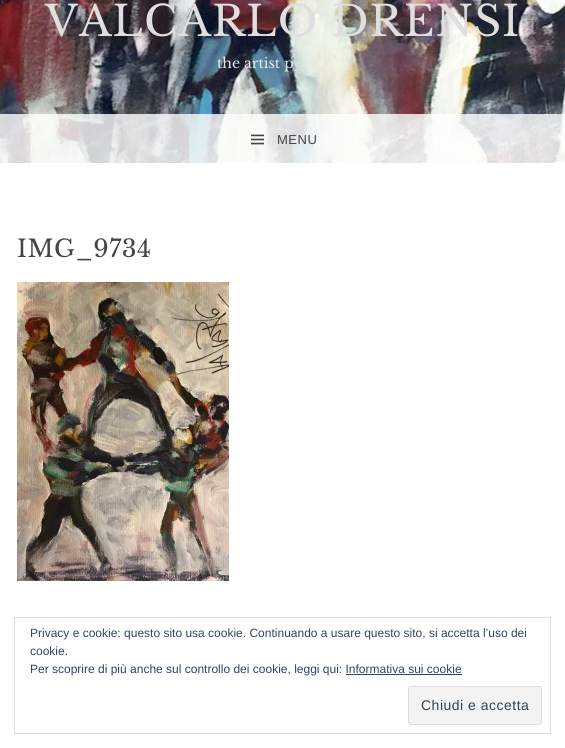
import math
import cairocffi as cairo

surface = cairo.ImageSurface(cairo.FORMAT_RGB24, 565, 748)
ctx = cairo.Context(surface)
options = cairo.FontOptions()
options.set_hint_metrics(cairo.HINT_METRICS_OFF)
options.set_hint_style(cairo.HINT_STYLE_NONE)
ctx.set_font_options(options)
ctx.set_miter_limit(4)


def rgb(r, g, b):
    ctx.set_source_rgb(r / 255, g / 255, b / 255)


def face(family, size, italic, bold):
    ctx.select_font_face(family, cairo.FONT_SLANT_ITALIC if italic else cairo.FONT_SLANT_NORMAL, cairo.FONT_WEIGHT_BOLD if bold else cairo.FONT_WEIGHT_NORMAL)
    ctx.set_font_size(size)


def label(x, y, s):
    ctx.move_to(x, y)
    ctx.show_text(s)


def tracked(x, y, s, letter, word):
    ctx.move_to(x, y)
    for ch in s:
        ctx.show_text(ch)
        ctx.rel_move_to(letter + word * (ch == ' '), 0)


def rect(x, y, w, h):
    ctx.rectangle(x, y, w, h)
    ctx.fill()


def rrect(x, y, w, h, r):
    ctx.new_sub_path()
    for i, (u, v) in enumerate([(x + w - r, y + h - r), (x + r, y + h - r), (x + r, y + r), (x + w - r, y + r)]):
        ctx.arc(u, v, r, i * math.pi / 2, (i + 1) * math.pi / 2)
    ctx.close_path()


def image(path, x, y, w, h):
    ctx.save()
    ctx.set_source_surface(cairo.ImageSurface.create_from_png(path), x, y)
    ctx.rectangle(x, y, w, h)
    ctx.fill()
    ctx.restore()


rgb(255, 255, 255)
ctx.paint()
image('image0.png', 0, 0, 565, 163)
face('Libre Baskerville', 42, 0, 0)
rgb(224, 222, 223)
tracked(45, 36, 'VALCARLO DRENSI', 1, 0)
face('Libre Baskerville', 14, 0, 0)
rgb(231, 234, 235)
label(217, 68, 'the artist p')
ctx.set_source_rgba(1, 1, 1, 0.8)
rect(0, 114, 565, 49)
image('image1.png', 251, 134, 13, 11)
face('Liberation Sans', 13, 0, 0)
rgb(68, 68, 68)
tracked(277, 144, 'MENU', 0.5, 0)
face('Libre Baskerville', 24, 0, 0)
tracked(17, 257, 'IMG_9734', 0.5, 0)
image('image2.png', 17, 282, 212, 299)
ctx.rectangle(14.5, 617.5, 536, 116)
rgb(222, 222, 222)
ctx.set_line_width(1)
ctx.stroke()
face('Liberation Sans', 12, 0, 0)
rgb(46, 68, 103)
label(30, 637, 'Privacy e cookie: questo sito usa cookie. Continuando a usare questo sito, si accetta l’uso dei')
label(30, 655, 'cookie.')
label(30, 673, 'Per scoprire di più anche sul controllo dei cookie, leggi qui: Informativa sui cookie')
rect(346, 674, 116, 1)
rgb(243, 243, 243)
rrect(408.5, 686.5, 133, 38, 2.5)
ctx.fill_preserve()
rgb(222, 222, 222)
ctx.stroke()
face('Liberation Sans', 14, 0, 0)
rgb(46, 68, 83)
tracked(421, 710, 'Chiudi e accetta', 0.5, 0)
surface.write_to_png('render.png')
